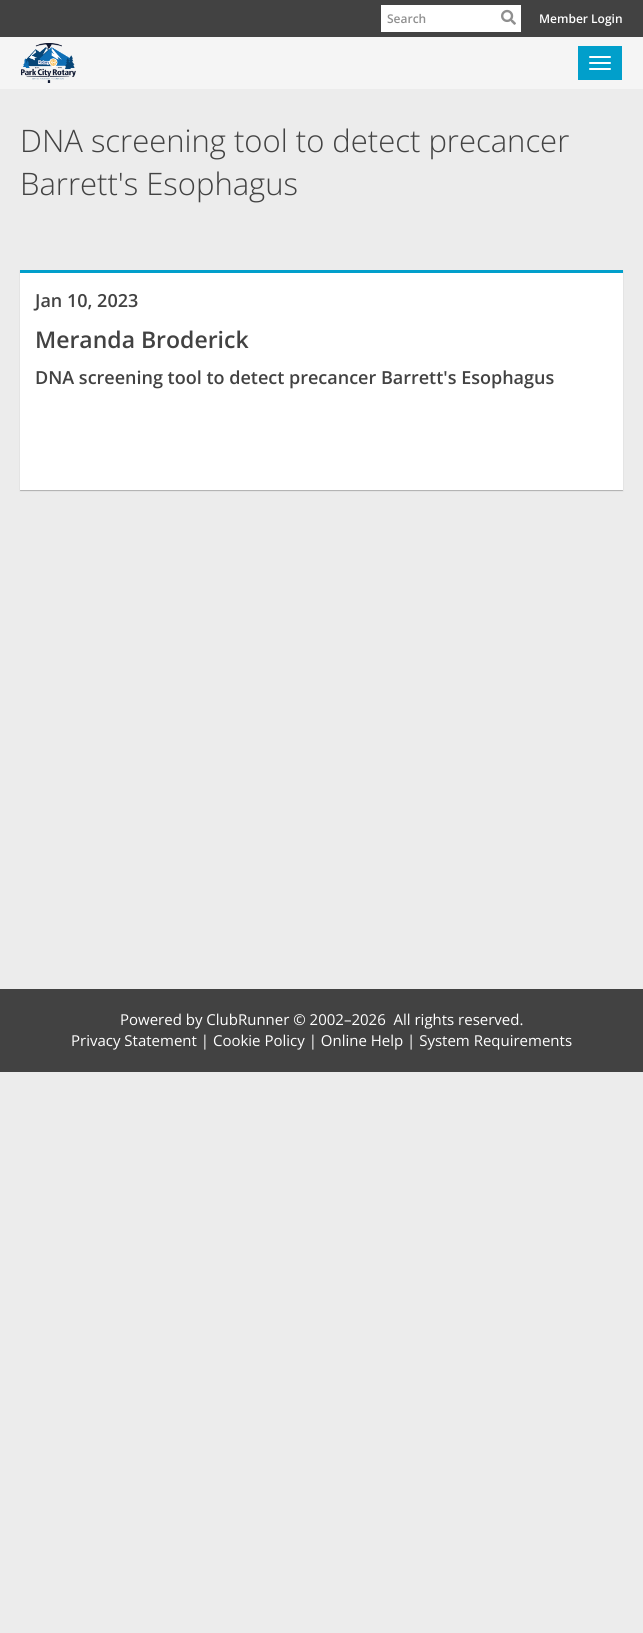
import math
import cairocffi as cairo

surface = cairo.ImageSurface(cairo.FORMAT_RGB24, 643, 1633)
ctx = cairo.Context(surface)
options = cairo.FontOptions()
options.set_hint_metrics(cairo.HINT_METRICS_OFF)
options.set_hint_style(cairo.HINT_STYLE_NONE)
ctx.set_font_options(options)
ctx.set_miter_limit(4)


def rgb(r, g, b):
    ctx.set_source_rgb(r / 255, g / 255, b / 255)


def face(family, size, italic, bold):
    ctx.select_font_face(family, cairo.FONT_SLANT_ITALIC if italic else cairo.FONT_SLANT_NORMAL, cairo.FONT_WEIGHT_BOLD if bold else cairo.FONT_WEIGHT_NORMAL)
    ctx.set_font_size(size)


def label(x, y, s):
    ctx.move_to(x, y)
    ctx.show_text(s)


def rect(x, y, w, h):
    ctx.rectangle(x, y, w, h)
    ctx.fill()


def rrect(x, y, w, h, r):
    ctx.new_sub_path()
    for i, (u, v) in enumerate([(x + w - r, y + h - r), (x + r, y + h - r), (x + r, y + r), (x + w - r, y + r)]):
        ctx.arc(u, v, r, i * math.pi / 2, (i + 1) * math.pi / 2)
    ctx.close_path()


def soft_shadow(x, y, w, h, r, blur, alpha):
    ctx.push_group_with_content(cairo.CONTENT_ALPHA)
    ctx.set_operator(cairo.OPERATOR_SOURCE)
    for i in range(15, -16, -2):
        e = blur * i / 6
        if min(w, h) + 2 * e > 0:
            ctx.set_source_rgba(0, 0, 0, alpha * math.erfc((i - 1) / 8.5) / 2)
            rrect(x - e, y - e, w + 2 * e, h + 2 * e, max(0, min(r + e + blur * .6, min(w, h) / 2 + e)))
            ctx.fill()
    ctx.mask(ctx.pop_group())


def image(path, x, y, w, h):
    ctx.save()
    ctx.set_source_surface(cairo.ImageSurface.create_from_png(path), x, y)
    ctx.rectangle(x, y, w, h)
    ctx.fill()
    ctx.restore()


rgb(236, 236, 236)
ctx.paint()
rgb(66, 66, 66)
rect(0, 0, 643, 37)
rgb(255, 255, 255)
rect(381, 5, 140, 27)
face('Open Sans SemiBold', 12, 0, 0)
rgb(143, 143, 143)
label(387, 23, 'Search')
image('image0.png', 501, 9, 15, 16)
rgb(255, 255, 255)
label(539, 23, 'Member Login')
rgb(245, 245, 245)
rect(0, 37, 643, 52)
image('image1.png', 21, 43, 55, 40)
rgb(1, 159, 203)
rect(578, 46, 44, 34)
rgb(255, 255, 255)
rrect(589, 56, 22, 2, 1)
ctx.fill()
rrect(589, 62, 22, 2, 1)
ctx.fill()
rrect(589, 68, 22, 2, 1)
ctx.fill()
face('Open Sans Light', 31, 0, 0)
rgb(66, 66, 66)
label(20, 152, 'DNA screening tool to detect precancer')
label(20, 195, 'Barrett\'s Esophagus')
rgb(0, 0, 0)
soft_shadow(20, 271, 603, 220, 0, 0.5, 0.15)
rgb(255, 255, 255)
rect(20, 273, 603, 217)
ctx.save()
ctx.rectangle(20, 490, 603, 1)
ctx.clip()
rgb(0, 0, 0)
soft_shadow(20, 271, 603, 220, 0, 0.5, 0.15)
ctx.restore()
rgb(1, 159, 203)
rect(20, 270, 603, 3)
face('Open Sans SemiBold', 18, 0, 0)
rgb(66, 66, 66)
label(35, 307, 'Jan 10, 2023')
face('Open Sans SemiBold', 23, 0, 0)
label(35, 348, 'Meranda Broderick')
face('Open Sans SemiBold', 18, 0, 0)
label(35, 384, 'DNA screening tool to detect precancer Barrett\'s Esophagus')
rect(0, 989, 643, 83)
face('Open Sans', 15, 0, 0)
rgb(255, 255, 255)
label(120, 1025, 'Powered by ClubRunner © 2002–2026  All rights reserved.')
label(71, 1046, 'Privacy Statement | Cookie Policy | Online Help | System Requirements')
surface.write_to_png('render.png')
